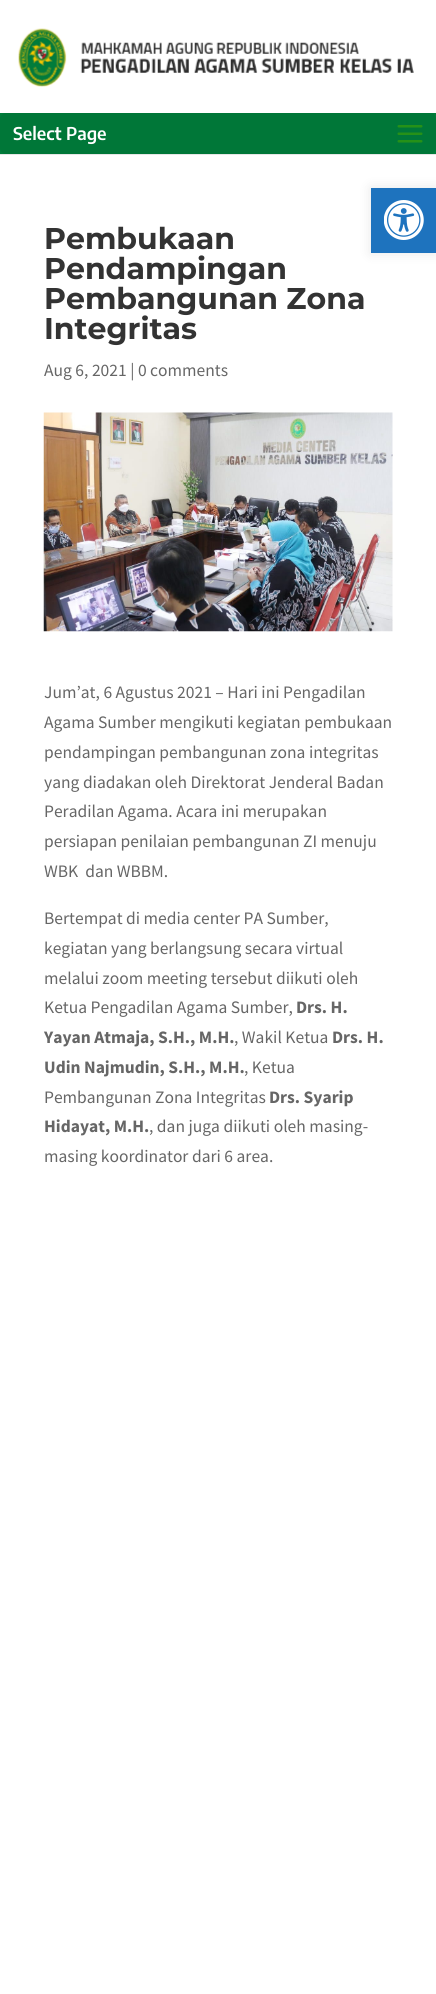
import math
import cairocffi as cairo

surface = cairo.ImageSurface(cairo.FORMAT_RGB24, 436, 1994)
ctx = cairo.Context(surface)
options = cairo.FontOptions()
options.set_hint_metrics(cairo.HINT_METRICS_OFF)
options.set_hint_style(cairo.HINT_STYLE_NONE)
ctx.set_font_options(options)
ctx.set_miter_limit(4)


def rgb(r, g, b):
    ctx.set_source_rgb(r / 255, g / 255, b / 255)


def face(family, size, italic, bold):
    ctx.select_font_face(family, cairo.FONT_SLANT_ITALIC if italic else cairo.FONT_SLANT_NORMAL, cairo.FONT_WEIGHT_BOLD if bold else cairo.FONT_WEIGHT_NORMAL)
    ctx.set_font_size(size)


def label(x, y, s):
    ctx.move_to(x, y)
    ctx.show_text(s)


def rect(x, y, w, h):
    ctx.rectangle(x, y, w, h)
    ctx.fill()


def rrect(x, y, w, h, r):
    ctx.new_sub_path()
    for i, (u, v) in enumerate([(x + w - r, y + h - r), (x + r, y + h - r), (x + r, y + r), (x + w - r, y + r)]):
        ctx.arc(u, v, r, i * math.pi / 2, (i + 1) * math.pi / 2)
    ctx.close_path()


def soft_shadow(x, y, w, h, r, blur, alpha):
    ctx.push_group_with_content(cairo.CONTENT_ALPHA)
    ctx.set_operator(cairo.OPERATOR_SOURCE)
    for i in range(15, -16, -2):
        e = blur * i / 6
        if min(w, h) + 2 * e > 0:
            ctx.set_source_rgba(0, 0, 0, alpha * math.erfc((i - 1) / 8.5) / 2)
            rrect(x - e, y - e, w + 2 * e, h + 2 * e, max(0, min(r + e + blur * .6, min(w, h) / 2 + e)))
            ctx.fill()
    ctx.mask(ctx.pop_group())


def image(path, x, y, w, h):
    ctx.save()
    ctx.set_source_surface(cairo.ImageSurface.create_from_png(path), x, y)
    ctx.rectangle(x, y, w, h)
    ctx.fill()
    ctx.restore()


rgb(255, 255, 255)
ctx.paint()
rgb(230, 230, 230)
rect(0, 154, 436, 1)
image('image0.png', 18, 28, 396, 59)
rgb(0, 125, 59)
rect(0, 113, 436, 41)
rgb(0, 119, 56)
rrect(0, 113, 436, 41, 6)
ctx.fill()
face('Encode Sans Condensed SemiBold', 17.5, 0, 0)
rgb(255, 255, 255)
label(13, 140, 'Select Page')
image('image1.png', 397, 125, 26, 18)
face('Montserrat', 30, 0, 1)
rgb(51, 51, 51)
label(44, 249, 'Pembukaan')
label(44, 279, 'Pendampingan')
label(44, 309, 'Pembangunan Zona')
label(44, 339, 'Integritas')
face('Source Sans Pro', 17.5, 0, 0)
rgb(102, 102, 102)
label(44, 376, 'Aug 6, 2021 | 0 comments')
image('image2.png', 43, 412, 350, 220)
label(44, 698, 'Jum’at, 6 Agustus 2021 – Hari ini Pengadilan')
label(44, 728, 'Agama Sumber mengikuti kegiatan pembukaan')
label(44, 758, 'pendampingan pembangunan zona integritas')
label(44, 788, 'yang diadakan oleh Direktorat Jenderal Badan')
label(44, 817, 'Peradilan Agama. Acara ini merupakan')
label(44, 847, 'persiapan penilaian pembangunan ZI menuju')
label(44, 877, 'WBK  dan WBBM.')
label(44, 924, 'Bertempat di media center PA Sumber,')
label(44, 954, 'kegiatan yang berlangsung secara virtual')
label(44, 984, 'melalui zoom meeting tersebut diikuti oleh')
label(44, 1013, 'Ketua Pengadilan Agama Sumber,')
face('Source Sans Pro', 17.5, 0, 1)
label(296, 1013, 'Drs. H.')
label(44, 1043, 'Yayan Atmaja, S.H., M.H.')
face('Source Sans Pro', 17.5, 0, 0)
label(234, 1043, ', Wakil Ketua')
face('Source Sans Pro', 17.5, 0, 1)
label(332, 1043, 'Drs. H.')
label(44, 1073, 'Udin Najmudin, S.H., M.H.')
face('Source Sans Pro', 17.5, 0, 0)
label(244, 1073, ', Ketua')
label(44, 1103, 'Pembangunan Zona Integritas')
face('Source Sans Pro', 17.5, 0, 1)
label(269, 1103, 'Drs. Syarip')
label(44, 1132, 'Hidayat, M.H.')
face('Source Sans Pro', 17.5, 0, 0)
label(149, 1132, ', dan juga diikuti oleh masing-')
label(44, 1162, 'masing koordinator dari 6 area.')
rgb(0, 0, 0)
soft_shadow(371, 188, 65, 65, 0, 6, 0.1)
rgb(30, 115, 190)
rect(371, 188, 65, 65)
image('image3.png', 384, 200, 40, 40)
surface.write_to_png('render.png')
